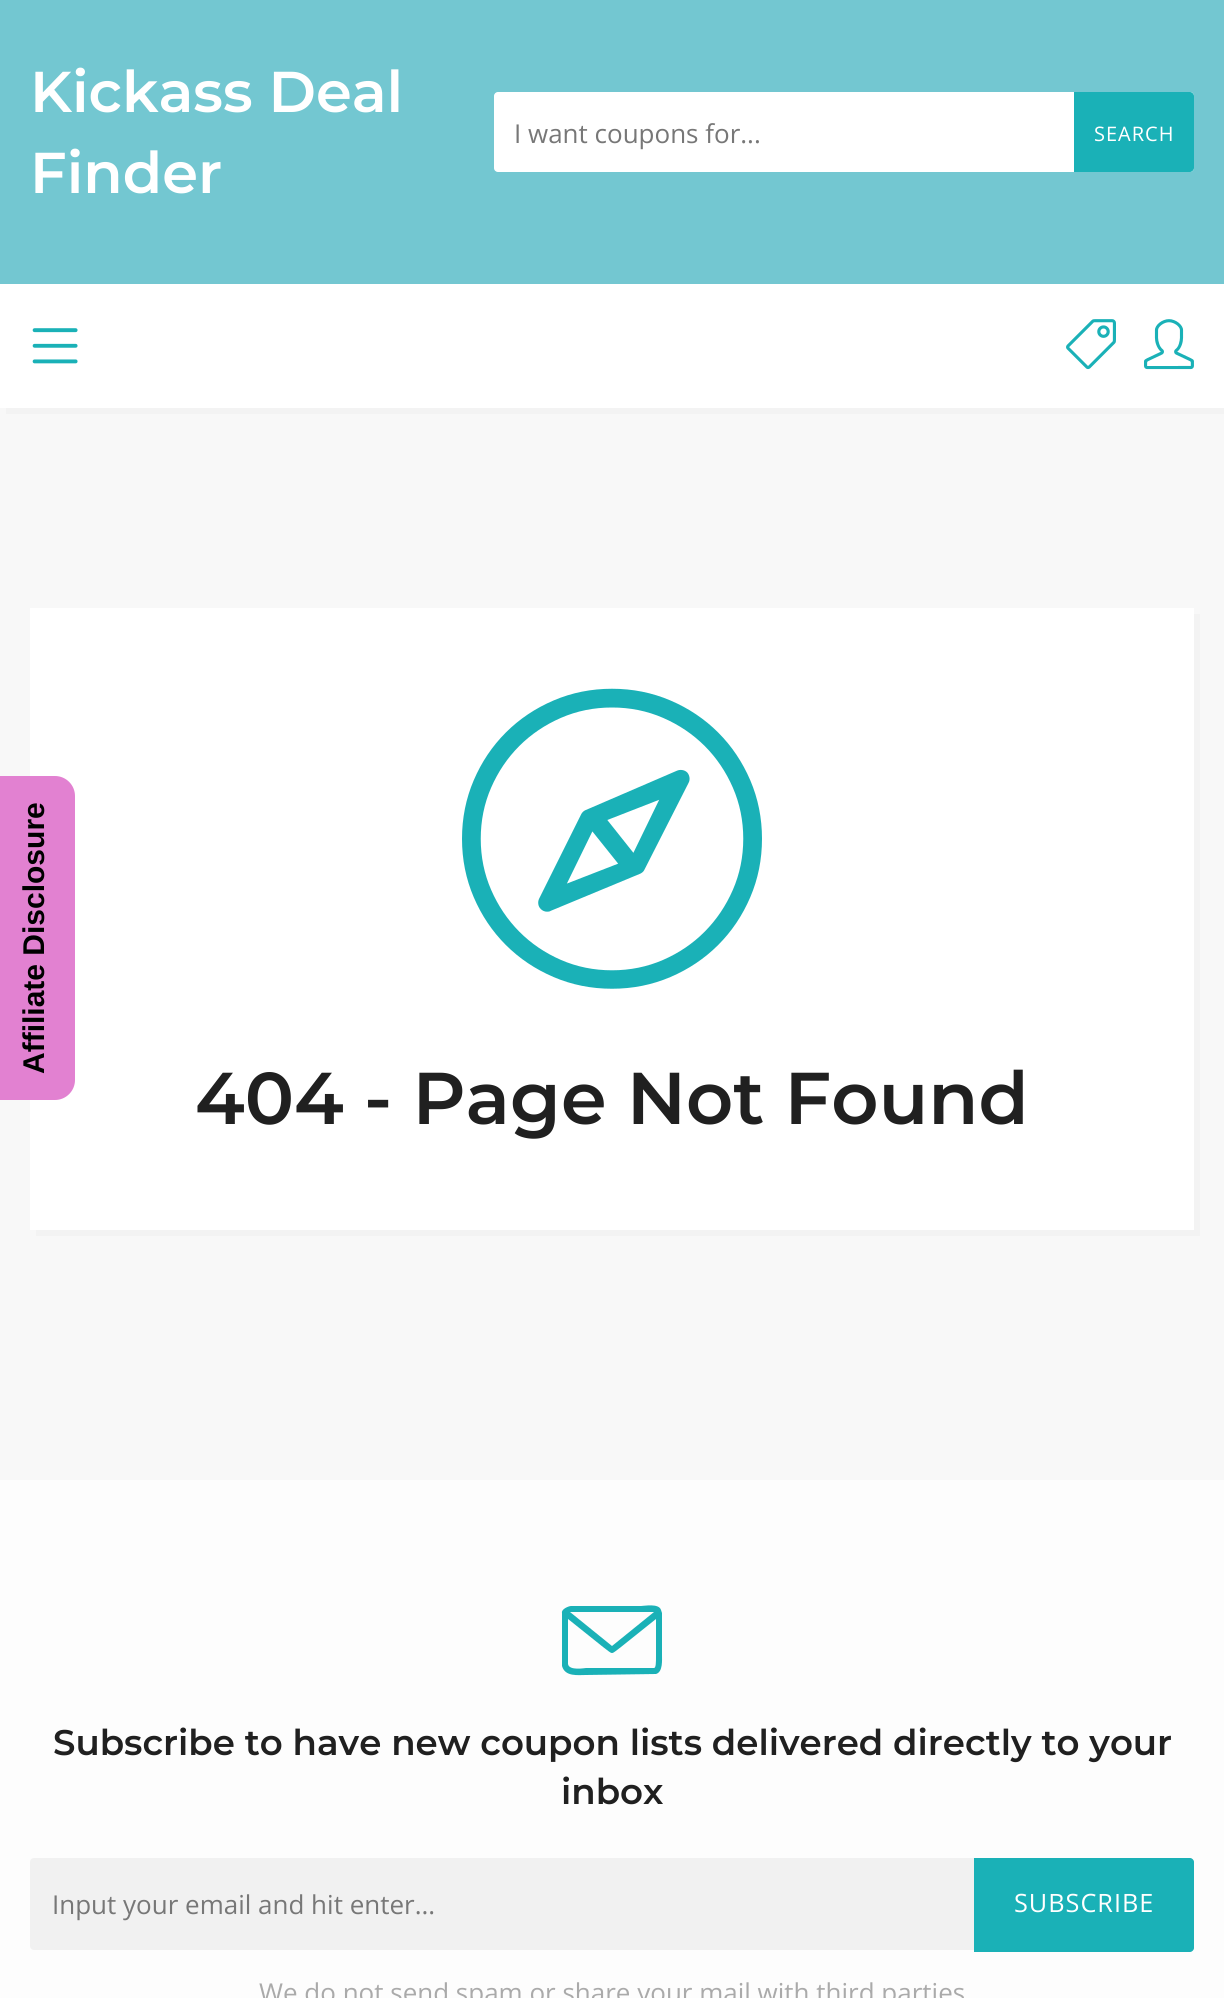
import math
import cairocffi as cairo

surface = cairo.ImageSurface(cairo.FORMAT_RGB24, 1224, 1998)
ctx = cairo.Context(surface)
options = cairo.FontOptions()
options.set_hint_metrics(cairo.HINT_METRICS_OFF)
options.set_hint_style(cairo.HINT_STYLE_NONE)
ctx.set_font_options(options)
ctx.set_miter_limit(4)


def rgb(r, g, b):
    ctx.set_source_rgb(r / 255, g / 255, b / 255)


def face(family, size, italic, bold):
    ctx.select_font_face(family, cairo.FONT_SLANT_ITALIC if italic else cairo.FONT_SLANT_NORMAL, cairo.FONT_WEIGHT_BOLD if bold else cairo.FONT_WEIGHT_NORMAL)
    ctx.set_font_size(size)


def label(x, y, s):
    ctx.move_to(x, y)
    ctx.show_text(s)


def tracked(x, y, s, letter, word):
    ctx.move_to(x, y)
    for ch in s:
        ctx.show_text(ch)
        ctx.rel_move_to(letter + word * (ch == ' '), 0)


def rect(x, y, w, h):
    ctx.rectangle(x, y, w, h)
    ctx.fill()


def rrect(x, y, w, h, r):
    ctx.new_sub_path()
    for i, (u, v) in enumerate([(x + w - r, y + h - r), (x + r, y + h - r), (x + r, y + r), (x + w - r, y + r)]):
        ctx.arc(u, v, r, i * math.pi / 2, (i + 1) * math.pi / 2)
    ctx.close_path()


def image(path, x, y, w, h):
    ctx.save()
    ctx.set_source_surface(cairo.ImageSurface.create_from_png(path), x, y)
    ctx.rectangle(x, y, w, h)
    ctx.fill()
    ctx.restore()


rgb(248, 248, 248)
ctx.paint()
rgb(115, 199, 209)
rect(0, 0, 1224, 284)
face('Montserrat Thin', 57.5, 0, 0)
rgb(255, 255, 255)
label(30, 112, 'Kickass Deal')
label(30, 193, 'Finder')
rrect(494, 92, 700, 80, 4)
ctx.fill()
face('Open Sans', 26, 0, 0)
rgb(119, 119, 119)
label(514, 143, 'I want coupons for...')
rgb(26, 177, 183)
ctx.new_path()
ctx.move_to(1074, 92)
ctx.line_to(1190, 92)
ctx.curve_to(1192, 92, 1194, 94, 1194, 96)
ctx.line_to(1194, 168)
ctx.curve_to(1194, 170, 1192, 172, 1190, 172)
ctx.line_to(1074, 172)
ctx.close_path()
ctx.fill()
face('Open Sans', 20, 0, 0)
rgb(255, 255, 255)
tracked(1094, 141, 'SEARCH', 1, 0)
rgb(243, 243, 243)
ctx.new_path()
ctx.move_to(6, 408)
ctx.line_to(6, 414)
ctx.line_to(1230, 414)
ctx.line_to(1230, 290)
ctx.line_to(1224, 290)
ctx.line_to(1224, 408)
ctx.close_path()
ctx.fill()
rgb(255, 255, 255)
rect(0, 284, 1224, 124)
image('image0.png', 32, 328, 46, 36)
image('image1.png', 1066, 319, 50, 51)
image('image2.png', 1144, 319, 50, 51)
rgb(243, 243, 243)
ctx.new_path()
ctx.move_to(36, 1230)
ctx.line_to(36, 1236)
ctx.line_to(1200, 1236)
ctx.line_to(1200, 614)
ctx.line_to(1194, 614)
ctx.line_to(1194, 1230)
ctx.close_path()
ctx.fill()
rgb(255, 255, 255)
rect(30, 608, 1164, 622)
rgb(226, 129, 209)
ctx.new_path()
ctx.move_to(-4, 1100)
ctx.line_to(-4, 776)
ctx.line_to(55, 776)
ctx.curve_to(66, 776, 75, 785, 75, 796)
ctx.line_to(75, 1080)
ctx.curve_to(75, 1091, 66, 1100, 55, 1100)
ctx.close_path()
ctx.fill()
face('Liberation Sans', 30, 0, 1)
rgb(0, 0, 0)
ctx.save()
ctx.translate(44, 1074)
ctx.rotate(-90 * math.pi / 180)
label(0, 0, 'Affiliate Disclosure')
ctx.restore()
image('image3.png', 462, 688, 300, 301)
face('Montserrat Thin', 73.25, 0, 0)
rgb(32, 32, 32)
label(195, 1124, '404 - Page Not Found')
rgb(253, 253, 253)
rect(0, 1480, 1224, 518)
rgb(26, 177, 183)
ctx.new_path()
ctx.move_to(662, 1613)
ctx.line_to(661, 1610)
ctx.curve_to(659, 1603, 644, 1606, 641, 1606)
ctx.line_to(571, 1606)
ctx.curve_to(569, 1606, 561, 1609, 562, 1613)
ctx.line_to(562, 1666)
ctx.curve_to(565, 1677, 578, 1675, 586, 1675)
ctx.line_to(656, 1674)
ctx.curve_to(663, 1672, 662, 1660, 662, 1655)
ctx.close_path()
ctx.move_to(573, 1612)
ctx.line_to(654, 1612)
ctx.line_to(612, 1646)
ctx.line_to(570, 1612)
ctx.close_path()
ctx.move_to(654, 1668)
ctx.line_to(586, 1668)
ctx.curve_to(585, 1668, 569, 1671, 568, 1664)
ctx.line_to(568, 1619)
ctx.line_to(603, 1647)
ctx.curve_to(614, 1655, 610, 1655, 621, 1647)
ctx.line_to(656, 1619)
ctx.line_to(656, 1656)
ctx.curve_to(656, 1662, 656, 1668, 654, 1668)
ctx.close_path()
ctx.fill()
face('Montserrat Thin', 35.6, 0, 0)
rgb(32, 32, 32)
label(53, 1755, 'Subscribe to have new coupon lists delivered directly to your')
label(561, 1804, 'inbox')
rgb(241, 241, 241)
rrect(31, 1859, 1162, 90, 3)
ctx.fill_preserve()
ctx.stroke()
face('Open Sans', 26, 0, 0)
rgb(119, 119, 119)
label(52, 1914, 'Input your email and hit enter...')
rgb(26, 177, 183)
ctx.new_path()
ctx.move_to(974, 1858)
ctx.line_to(1190, 1858)
ctx.curve_to(1192, 1858, 1194, 1860, 1194, 1862)
ctx.line_to(1194, 1948)
ctx.curve_to(1194, 1950, 1192, 1952, 1190, 1952)
ctx.line_to(974, 1952)
ctx.close_path()
ctx.fill()
face('Open Sans', 25.25, 0, 0)
rgb(255, 255, 255)
tracked(1014, 1912, 'SUBSCRIBE', 1, 0)
face('Open Sans', 26, 0, 0)
rgb(170, 170, 170)
label(259, 2002, 'We do not send spam or share your mail with third parties')
surface.write_to_png('render.png')
